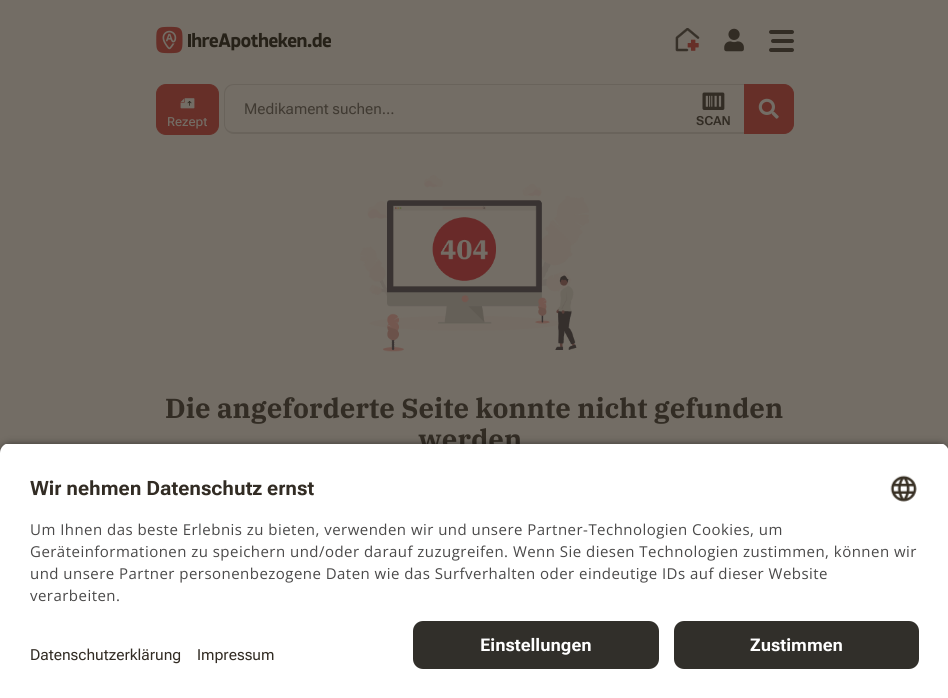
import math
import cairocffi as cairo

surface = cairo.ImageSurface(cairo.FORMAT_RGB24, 948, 698)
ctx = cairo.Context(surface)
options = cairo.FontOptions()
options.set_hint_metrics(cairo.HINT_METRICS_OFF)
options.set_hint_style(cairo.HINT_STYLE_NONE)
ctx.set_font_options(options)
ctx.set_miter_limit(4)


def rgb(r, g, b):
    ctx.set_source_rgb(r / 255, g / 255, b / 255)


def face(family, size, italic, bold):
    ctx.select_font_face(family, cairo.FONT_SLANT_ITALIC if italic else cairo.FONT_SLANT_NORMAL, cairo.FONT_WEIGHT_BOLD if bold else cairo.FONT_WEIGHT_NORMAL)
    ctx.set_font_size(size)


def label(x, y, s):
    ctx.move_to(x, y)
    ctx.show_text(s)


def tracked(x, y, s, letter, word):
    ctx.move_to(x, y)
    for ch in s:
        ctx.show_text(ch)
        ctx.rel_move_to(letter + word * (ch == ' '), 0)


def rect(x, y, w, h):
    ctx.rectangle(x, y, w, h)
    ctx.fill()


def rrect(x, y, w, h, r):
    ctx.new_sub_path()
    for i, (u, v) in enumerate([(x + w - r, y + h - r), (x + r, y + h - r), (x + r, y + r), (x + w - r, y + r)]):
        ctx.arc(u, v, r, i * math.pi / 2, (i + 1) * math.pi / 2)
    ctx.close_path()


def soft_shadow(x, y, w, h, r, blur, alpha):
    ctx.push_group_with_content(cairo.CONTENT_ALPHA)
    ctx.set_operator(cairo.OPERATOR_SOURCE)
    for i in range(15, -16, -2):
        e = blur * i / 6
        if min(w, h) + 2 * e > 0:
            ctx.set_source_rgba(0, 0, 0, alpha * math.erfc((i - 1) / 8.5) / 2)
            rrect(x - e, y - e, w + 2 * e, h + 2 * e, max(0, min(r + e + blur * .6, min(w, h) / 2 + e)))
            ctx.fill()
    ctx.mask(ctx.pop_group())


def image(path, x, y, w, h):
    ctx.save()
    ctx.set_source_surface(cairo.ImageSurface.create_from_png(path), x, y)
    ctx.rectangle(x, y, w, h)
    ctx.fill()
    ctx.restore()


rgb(115, 109, 101)
ctx.paint()
image('image0.png', 156, 26, 175, 28)
image('image1.png', 675, 28, 25, 24)
image('image2.png', 724, 28, 20, 24)
rgb(50, 44, 36)
rrect(769, 30, 25, 4, 2)
ctx.fill()
rrect(771, 39, 23, 4, 2)
ctx.fill()
rrect(769, 48, 25, 4, 2)
ctx.fill()
rgb(102, 47, 40)
rrect(156.5, 84.5, 62, 50, 9.5)
ctx.fill_preserve()
ctx.set_line_width(1)
ctx.stroke()
image('image3.png', 180, 98, 15, 11)
face('Roboto Flex Medium', 12.5, 0, 0)
rgb(115, 109, 101)
label(167, 126, 'Rezept')
rgb(105, 99, 91)
ctx.set_fill_rule(cairo.FILL_RULE_EVEN_ODD)
ctx.new_path()
ctx.move_to(234, 84)
ctx.line_to(744, 84)
ctx.line_to(744, 134)
ctx.line_to(234, 134)
ctx.curve_to(228, 134, 224, 129, 224, 124)
ctx.line_to(224, 94)
ctx.curve_to(224, 88, 228, 84, 234, 84)
ctx.close_path()
ctx.move_to(234, 85)
ctx.line_to(744, 85)
ctx.line_to(744, 132)
ctx.line_to(234, 132)
ctx.curve_to(229, 132, 225, 129, 225, 124)
ctx.line_to(225, 94)
ctx.curve_to(225, 89, 229, 85, 234, 85)
ctx.close_path()
ctx.fill()
face('Roboto Flex', 15, 0, 0)
rgb(64, 58, 50)
label(244, 114, 'Medikament suchen...')
rgb(102, 47, 40)
ctx.new_path()
ctx.move_to(744.5, 84.5)
ctx.line_to(784, 84.5)
ctx.curve_to(789, 84.5, 793.5, 89, 793.5, 94)
ctx.line_to(793.5, 124)
ctx.curve_to(793.5, 129, 789, 133.5, 784, 133.5)
ctx.line_to(744.5, 133.5)
ctx.close_path()
ctx.fill_preserve()
ctx.stroke()
image('image4.png', 758, 98, 21, 21)
image('image5.png', 702, 92, 23, 18)
face('Roboto Flex', 12.5, 0, 1)
rgb(50, 44, 36)
label(696, 125, 'SCAN')
image('image6.png', 360, 175, 229, 177)
face('IBM Plex Serif', 27.5, 0, 1)
label(165, 418, 'Die angeforderte Seite konnte nicht gefunden')
label(418, 449, 'werden')
rgb(0, 0, 0)
soft_shadow(0, 446, 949, 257, 10, 4.5, 0.8)
ctx.save()
ctx.set_fill_rule(cairo.FILL_RULE_WINDING)
ctx.new_path()
ctx.move_to(10, 443)
ctx.line_to(939, 443)
ctx.curve_to(944.5, 443, 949, 447.5, 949, 453)
ctx.line_to(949, 611)
ctx.line_to(0, 611)
ctx.line_to(0, 453)
ctx.curve_to(0, 447.5, 4.5, 443, 10, 443)
ctx.close_path()
ctx.clip()
rgb(255, 255, 255)
rect(0, 444, 948, 167)
ctx.restore()
face('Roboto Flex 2', 19.75, 0, 1)
rgb(50, 44, 36)
label(30, 495, 'Wir nehmen Datenschutz ernst')
image('image7.png', 890, 475, 27, 27)
face('Open Sans', 15, 0, 0)
rgb(74, 73, 73)
tracked(30, 535, 'Um Ihnen das beste Erlebnis zu bieten, verwenden wir und unsere Partner-Technologien Cookies, um', 0.47, 0)
tracked(30, 557, 'Geräteinformationen zu speichern und/oder darauf zuzugreifen. Wenn Sie diesen Technologien zustimmen, können wir', 0.47, 0)
tracked(30, 579, 'und unsere Partner personenbezogene Daten wie das Surfverhalten oder eindeutige IDs auf dieser Website', 0.47, 0)
tracked(30, 601, 'verarbeiten.', 0.47, 0)
rgb(255, 255, 255)
rect(0, 611, 948, 87)
face('Roboto Flex 2', 15.25, 0, 0)
rgb(50, 44, 36)
label(30, 660, 'Datenschutzerklärung')
label(197, 660, 'Impressum')
rgb(49, 47, 42)
rrect(413, 621, 246, 48, 10)
ctx.fill()
face('Roboto Flex 2', 17.5, 0, 1)
rgb(255, 255, 255)
label(480, 651, 'Einstellungen')
rgb(49, 47, 42)
rrect(674, 621, 245, 48, 10)
ctx.fill()
rgb(255, 255, 255)
label(750, 651, 'Zustimmen')
surface.write_to_png('render.png')
